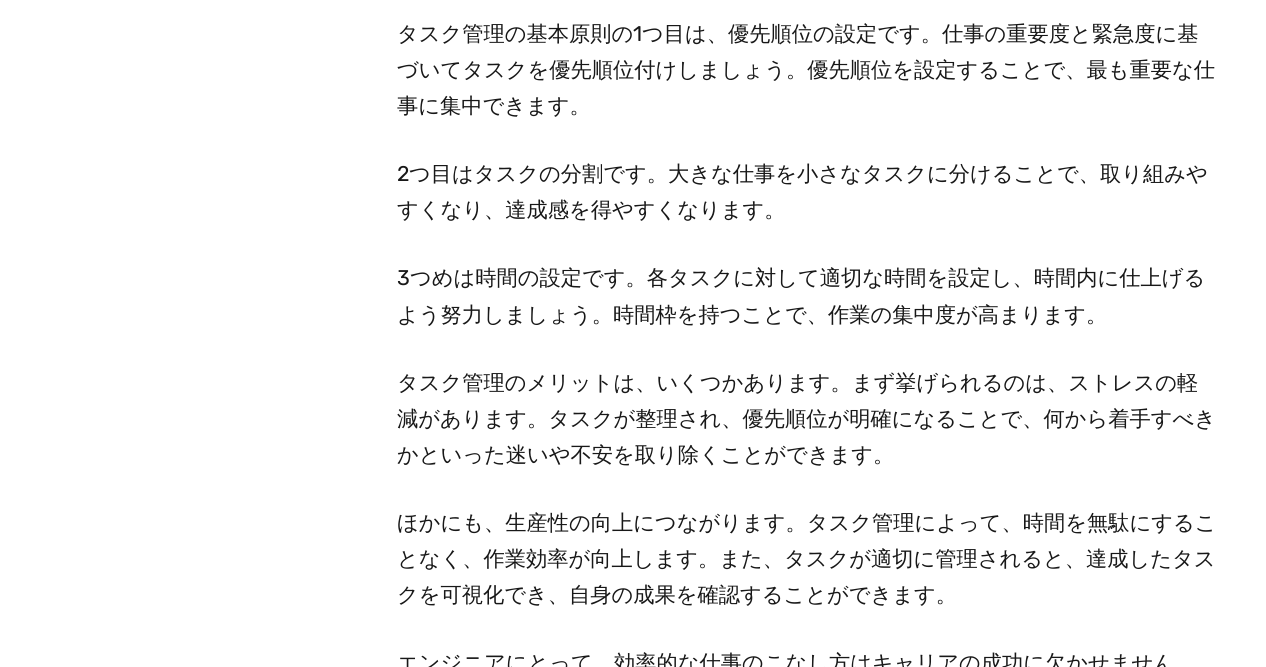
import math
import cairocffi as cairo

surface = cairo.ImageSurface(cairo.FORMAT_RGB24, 1266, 667)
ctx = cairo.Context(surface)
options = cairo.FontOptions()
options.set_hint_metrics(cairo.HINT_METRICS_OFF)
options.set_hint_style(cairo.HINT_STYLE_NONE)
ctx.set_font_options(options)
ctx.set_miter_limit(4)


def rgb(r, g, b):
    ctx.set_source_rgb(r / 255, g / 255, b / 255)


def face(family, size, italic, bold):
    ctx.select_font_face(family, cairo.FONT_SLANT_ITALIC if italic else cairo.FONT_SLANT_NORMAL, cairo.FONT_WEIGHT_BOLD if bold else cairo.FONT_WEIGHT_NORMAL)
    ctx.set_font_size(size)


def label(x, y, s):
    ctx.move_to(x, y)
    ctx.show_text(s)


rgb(255, 255, 255)
ctx.paint()
face('WenQuanYi Zen Hei Medium', 21.25, 0, 0)
rgb(24, 24, 24)
label(397, 41, 'タスク管理の基本原則の')
face('Rubik', 21.25, 0, 0)
label(633, 41, '1')
face('WenQuanYi Zen Hei Medium', 21.25, 0, 0)
label(642, 41, 'つ目は、優先順位の設定です。仕事の重要度と緊急度に基')
label(397, 77, 'づいてタスクを優先順位付けしましょう。優先順位を設定することで、最も重要な仕')
label(397, 113, '事に集中できます。')
face('Rubik', 21.25, 0, 0)
label(397, 181, '2')
face('WenQuanYi Zen Hei Medium', 21.25, 0, 0)
label(409, 181, 'つ目はタスクの分割です。大きな仕事を小さなタスクに分けることで、取り組みや')
label(397, 217, 'すくなり、達成感を得やすくなります。')
face('Rubik', 21.25, 0, 0)
label(397, 285, '3')
face('WenQuanYi Zen Hei Medium', 21.25, 0, 0)
label(410, 285, 'つめは時間の設定です。各タスクに対して適切な時間を設定し、時間内に仕上げる')
label(397, 322, 'よう努力しましょう。時間枠を持つことで、作業の集中度が高まります。')
label(397, 390, 'タスク管理のメリットは、いくつかあります。まず挙げられるのは、ストレスの軽')
label(397, 426, '減があります。タスクが整理され、優先順位が明確になることで、何から着手すべき')
label(397, 462, 'かといった迷いや不安を取り除くことができます。')
label(397, 530, 'ほかにも、生産性の向上につながります。タスク管理によって、時間を無駄にするこ')
label(397, 566, 'となく、作業効率が向上します。また、タスクが適切に管理されると、達成したタス')
label(397, 602, 'クを可視化でき、自身の成果を確認することができます。')
label(397, 670, 'エンジニアにとって、効率的な仕事のこなし方はキャリアの成功に欠かせません')
surface.write_to_png('render.png')
